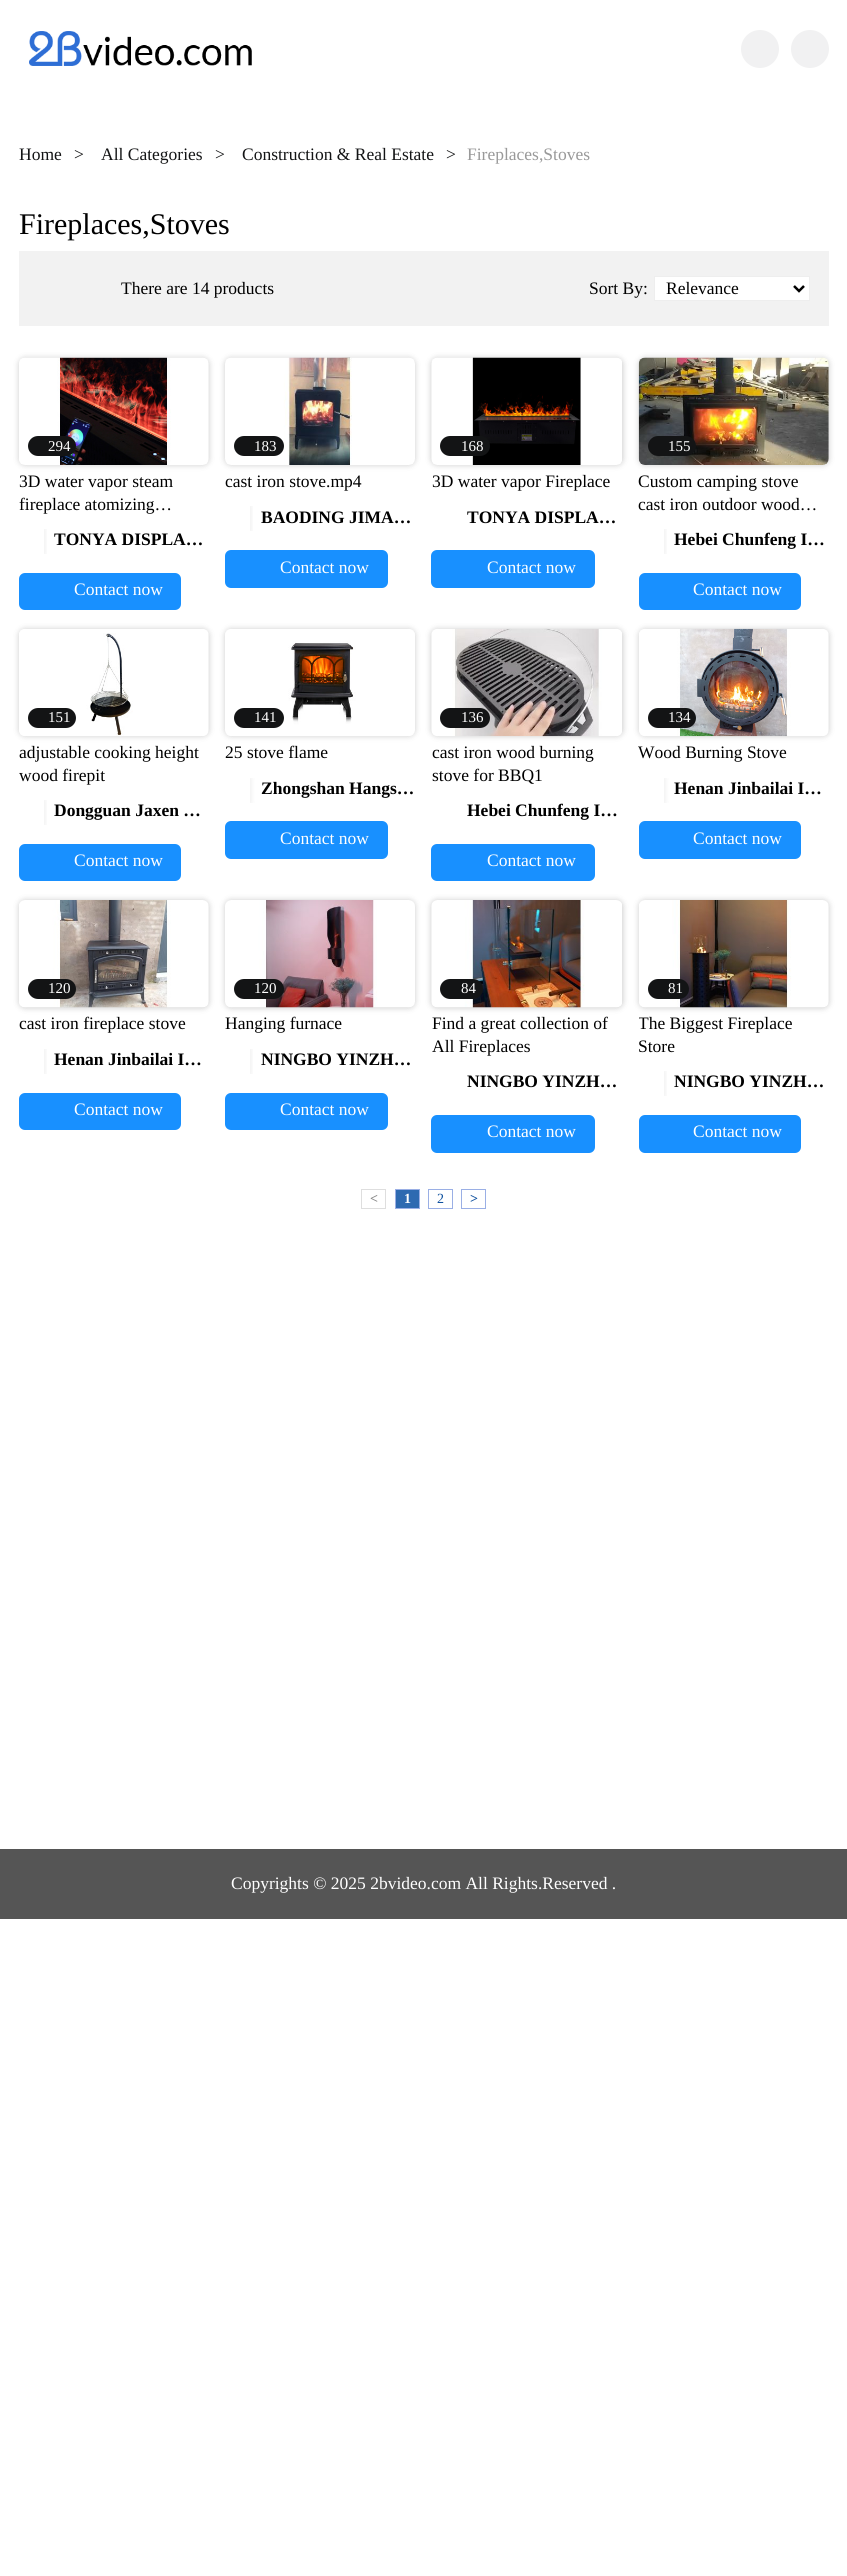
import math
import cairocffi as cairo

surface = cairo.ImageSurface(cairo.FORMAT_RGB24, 847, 2576)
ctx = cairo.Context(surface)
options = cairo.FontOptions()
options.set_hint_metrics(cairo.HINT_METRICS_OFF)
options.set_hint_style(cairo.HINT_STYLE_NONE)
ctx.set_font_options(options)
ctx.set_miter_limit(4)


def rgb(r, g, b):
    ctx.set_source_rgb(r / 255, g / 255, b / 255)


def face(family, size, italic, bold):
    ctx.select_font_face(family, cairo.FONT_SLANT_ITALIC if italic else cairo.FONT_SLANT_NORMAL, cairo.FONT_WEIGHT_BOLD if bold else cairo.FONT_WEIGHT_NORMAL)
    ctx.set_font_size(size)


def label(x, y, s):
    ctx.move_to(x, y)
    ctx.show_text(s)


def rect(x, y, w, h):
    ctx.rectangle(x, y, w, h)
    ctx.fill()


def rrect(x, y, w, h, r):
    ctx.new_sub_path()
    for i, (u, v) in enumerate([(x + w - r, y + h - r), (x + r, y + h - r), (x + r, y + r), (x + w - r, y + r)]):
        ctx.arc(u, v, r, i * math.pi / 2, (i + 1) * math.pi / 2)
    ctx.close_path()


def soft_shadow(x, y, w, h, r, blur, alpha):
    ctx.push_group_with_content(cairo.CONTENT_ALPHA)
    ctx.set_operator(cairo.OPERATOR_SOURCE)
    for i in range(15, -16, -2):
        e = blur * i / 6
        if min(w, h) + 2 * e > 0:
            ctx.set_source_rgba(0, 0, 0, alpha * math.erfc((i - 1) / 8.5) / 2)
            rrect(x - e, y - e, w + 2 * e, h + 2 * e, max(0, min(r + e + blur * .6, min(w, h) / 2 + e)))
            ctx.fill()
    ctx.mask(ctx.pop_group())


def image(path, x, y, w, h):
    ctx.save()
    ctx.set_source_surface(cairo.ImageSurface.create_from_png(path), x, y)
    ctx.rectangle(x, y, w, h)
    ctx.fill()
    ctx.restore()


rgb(255, 255, 255)
ctx.paint()
image('image0.png', 29, 31, 223, 35)
rgb(241, 241, 242)
ctx.arc(760, 49, 19, 0, 2 * math.pi)
ctx.fill()
ctx.arc(810, 49, 19, 0, 2 * math.pi)
ctx.fill()
face('Liberation Serif', 17.5, 0, 0)
rgb(19, 20, 21)
label(19, 160, 'Home')
label(74, 160, '>')
label(101, 160, 'All Categories')
label(215, 160, '>')
label(242, 160, 'Construction & Real Estate')
label(446, 160, '>')
rgb(153, 153, 153)
label(467, 160, 'Fireplaces,Stoves')
face('Liberation Serif', 30, 0, 0)
rgb(0, 0, 0)
label(19, 234, 'Fireplaces,Stoves')
rgb(242, 242, 242)
rect(19, 251, 810, 75)
face('Liberation Serif', 17.5, 0, 0)
rgb(0, 0, 0)
label(121, 294, 'There are 14 products')
label(589, 294, 'Sort By:')
rgb(255, 255, 255)
ctx.rectangle(654.5, 276.5, 155, 24)
ctx.fill_preserve()
rgb(238, 238, 238)
ctx.set_line_width(1)
ctx.stroke()
ctx.new_path()
ctx.move_to(794, 286)
ctx.line_to(799, 291)
ctx.line_to(804, 286)
rgb(0, 0, 0)
ctx.set_line_width(2.5)
ctx.stroke()
label(666, 294, 'Relevance')
rgb(0, 0, 0)
soft_shadow(19, 358, 190, 107, 6, 3, 0.2)
image('image1.png', 19, 357, 190, 108)
rgb(19, 20, 21)
rrect(28, 436, 48, 20, 10)
ctx.fill()
face('Liberation Serif', 15, 0, 0)
rgb(255, 255, 255)
label(48, 451, '294')
face('Liberation Serif', 17.5, 0, 0)
rgb(0, 0, 0)
label(19, 487, '3D water vapor steam')
label(19, 510, 'fireplace atomizing…')
ctx.save()
ctx.rectangle(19, 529, 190, 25)
ctx.clip()
ctx.rectangle(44, 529, 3, 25)
ctx.clip()
rgb(0, 0, 0)
soft_shadow(19, 529, 25, 25, 0, 3, 0.1)
ctx.restore()
face('Liberation Serif', 17.5, 0, 1)
label(54, 545, 'TONYA DISPLA…')
rgb(24, 144, 255)
rrect(19, 573, 162, 37, 6)
ctx.fill()
face('Liberation Serif', 17.5, 0, 0)
rgb(255, 255, 255)
label(74, 595, 'Contact now')
rgb(0, 0, 0)
soft_shadow(225, 358, 190, 107, 6, 3, 0.2)
image('image2.png', 225, 357, 190, 108)
rgb(19, 20, 21)
rrect(234, 436, 50, 20, 10)
ctx.fill()
face('Liberation Serif', 15, 0, 0)
rgb(255, 255, 255)
label(254, 451, '183')
face('Liberation Serif', 17.5, 0, 0)
rgb(0, 0, 0)
label(225, 487, 'cast iron stove.mp4')
ctx.save()
ctx.rectangle(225, 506, 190, 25)
ctx.clip()
ctx.rectangle(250, 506, 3, 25)
ctx.clip()
rgb(0, 0, 0)
soft_shadow(225, 506, 25, 25, 0, 3, 0.1)
ctx.restore()
face('Liberation Serif', 17.5, 0, 1)
label(261, 523, 'BAODING JIMA…')
rgb(24, 144, 255)
rrect(225, 550, 163, 38, 6)
ctx.fill()
face('Liberation Serif', 17.5, 0, 0)
rgb(255, 255, 255)
label(280, 573, 'Contact now')
rgb(0, 0, 0)
soft_shadow(431, 358, 192, 107, 6, 3, 0.2)
image('image3.png', 431, 357, 191, 108)
rgb(19, 20, 21)
rrect(440, 436, 50, 20, 10)
ctx.fill()
face('Liberation Serif', 15, 0, 0)
rgb(255, 255, 255)
label(461, 451, '168')
face('Liberation Serif', 17.5, 0, 0)
rgb(0, 0, 0)
label(432, 487, '3D water vapor Fireplace')
face('Liberation Serif', 17.5, 0, 1)
label(467, 523, 'TONYA DISPLA…')
rgb(24, 144, 255)
rrect(431, 550, 164, 38, 6)
ctx.fill()
face('Liberation Serif', 17.5, 0, 0)
rgb(255, 255, 255)
label(487, 573, 'Contact now')
rgb(0, 0, 0)
soft_shadow(639, 358, 190, 107, 6, 3, 0.2)
image('image4.png', 638, 357, 191, 108)
rgb(19, 20, 21)
rrect(648, 436, 48, 20, 10)
ctx.fill()
face('Liberation Serif', 15, 0, 0)
rgb(255, 255, 255)
label(668, 451, '155')
face('Liberation Serif', 17.5, 0, 0)
rgb(0, 0, 0)
label(638, 487, 'Custom camping stove')
label(638, 510, 'cast iron outdoor wood…')
ctx.save()
ctx.rectangle(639, 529, 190, 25)
ctx.clip()
ctx.rectangle(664, 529, 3, 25)
ctx.clip()
rgb(0, 0, 0)
soft_shadow(639, 529, 25, 25, 0, 3, 0.1)
ctx.restore()
face('Liberation Serif', 17.5, 0, 1)
label(674, 545, 'Hebei Chunfeng I…')
rgb(24, 144, 255)
rrect(639, 573, 162, 37, 6)
ctx.fill()
face('Liberation Serif', 17.5, 0, 0)
rgb(255, 255, 255)
label(693, 595, 'Contact now')
rgb(0, 0, 0)
soft_shadow(19, 629, 190, 107, 6, 3, 0.2)
image('image5.png', 19, 629, 190, 107)
rgb(19, 20, 21)
rrect(28, 708, 48, 20, 10)
ctx.fill()
face('Liberation Serif', 15, 0, 0)
rgb(255, 255, 255)
label(48, 722, '151')
face('Liberation Serif', 17.5, 0, 0)
rgb(0, 0, 0)
label(19, 758, 'adjustable cooking height')
label(19, 781, 'wood firepit')
ctx.save()
ctx.rectangle(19, 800, 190, 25)
ctx.clip()
ctx.rectangle(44, 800, 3, 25)
ctx.clip()
rgb(0, 0, 0)
soft_shadow(19, 800, 25, 25, 0, 3, 0.1)
ctx.restore()
face('Liberation Serif', 17.5, 0, 1)
label(54, 816, 'Dongguan Jaxen …')
rgb(24, 144, 255)
rrect(19, 844, 162, 37, 6)
ctx.fill()
face('Liberation Serif', 17.5, 0, 0)
rgb(255, 255, 255)
label(74, 866, 'Contact now')
rgb(0, 0, 0)
soft_shadow(225, 629, 190, 107, 6, 3, 0.2)
image('image6.png', 225, 629, 190, 107)
rgb(19, 20, 21)
rrect(234, 708, 50, 20, 10)
ctx.fill()
face('Liberation Serif', 15, 0, 0)
rgb(255, 255, 255)
label(254, 722, '141')
face('Liberation Serif', 17.5, 0, 0)
rgb(0, 0, 0)
label(225, 758, '25 stove flame')
ctx.save()
ctx.rectangle(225, 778, 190, 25)
ctx.clip()
ctx.set_fill_rule(cairo.FILL_RULE_EVEN_ODD)
ctx.new_path()
ctx.move_to(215, 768)
ctx.line_to(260, 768)
ctx.line_to(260, 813)
ctx.line_to(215, 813)
ctx.close_path()
ctx.move_to(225, 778)
ctx.line_to(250, 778)
ctx.line_to(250, 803)
ctx.line_to(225, 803)
ctx.close_path()
ctx.clip()
rgb(0, 0, 0)
soft_shadow(225, 778, 25, 25, 0, 3, 0.1)
ctx.restore()
face('Liberation Serif', 17.5, 0, 1)
label(261, 794, 'Zhongshan Hangs…')
rgb(24, 144, 255)
rrect(225, 821, 163, 38, 6)
ctx.fill()
face('Liberation Serif', 17.5, 0, 0)
rgb(255, 255, 255)
label(280, 844, 'Contact now')
rgb(0, 0, 0)
soft_shadow(431, 629, 192, 107, 6, 3, 0.2)
image('image7.png', 431, 628, 191, 109)
rgb(19, 20, 21)
rrect(440, 708, 50, 20, 10)
ctx.fill()
face('Liberation Serif', 15, 0, 0)
rgb(255, 255, 255)
label(461, 722, '136')
face('Liberation Serif', 17.5, 0, 0)
rgb(0, 0, 0)
label(432, 758, 'cast iron wood burning')
label(432, 781, 'stove for BBQ1')
face('Liberation Serif', 17.5, 0, 1)
label(467, 816, 'Hebei Chunfeng I…')
rgb(24, 144, 255)
rrect(431, 844, 164, 37, 6)
ctx.fill()
face('Liberation Serif', 17.5, 0, 0)
rgb(255, 255, 255)
label(487, 866, 'Contact now')
rgb(0, 0, 0)
soft_shadow(639, 629, 190, 107, 6, 3, 0.2)
image('image8.png', 639, 628, 190, 109)
rgb(19, 20, 21)
rrect(648, 708, 48, 20, 10)
ctx.fill()
face('Liberation Serif', 15, 0, 0)
rgb(255, 255, 255)
label(668, 722, '134')
face('Liberation Serif', 17.5, 0, 0)
rgb(0, 0, 0)
label(638, 758, 'Wood Burning Stove')
ctx.save()
ctx.rectangle(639, 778, 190, 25)
ctx.clip()
ctx.set_fill_rule(cairo.FILL_RULE_EVEN_ODD)
ctx.new_path()
ctx.move_to(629, 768)
ctx.line_to(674, 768)
ctx.line_to(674, 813)
ctx.line_to(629, 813)
ctx.close_path()
ctx.move_to(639, 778)
ctx.line_to(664, 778)
ctx.line_to(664, 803)
ctx.line_to(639, 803)
ctx.close_path()
ctx.clip()
rgb(0, 0, 0)
soft_shadow(639, 778, 25, 25, 0, 3, 0.1)
ctx.restore()
face('Liberation Serif', 17.5, 0, 1)
label(674, 794, 'Henan Jinbailai I…')
rgb(24, 144, 255)
rrect(639, 821, 162, 38, 6)
ctx.fill()
face('Liberation Serif', 17.5, 0, 0)
rgb(255, 255, 255)
label(693, 844, 'Contact now')
rgb(0, 0, 0)
soft_shadow(19, 900, 190, 108, 6, 3, 0.2)
image('image9.png', 19, 900, 190, 108)
rgb(19, 20, 21)
rrect(28, 979, 48, 20, 10)
ctx.fill()
face('Liberation Serif', 15, 0, 0)
rgb(255, 255, 255)
label(48, 993, '120')
face('Liberation Serif', 17.5, 0, 0)
rgb(0, 0, 0)
label(19, 1029, 'cast iron fireplace stove')
ctx.save()
ctx.rectangle(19, 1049, 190, 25)
ctx.clip()
ctx.rectangle(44, 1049, 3, 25)
ctx.clip()
rgb(0, 0, 0)
soft_shadow(19, 1049, 25, 25, 0, 3, 0.1)
ctx.restore()
face('Liberation Serif', 17.5, 0, 1)
label(54, 1065, 'Henan Jinbailai I…')
rgb(24, 144, 255)
rrect(19, 1093, 162, 37, 6)
ctx.fill()
face('Liberation Serif', 17.5, 0, 0)
rgb(255, 255, 255)
label(74, 1115, 'Contact now')
rgb(0, 0, 0)
soft_shadow(225, 900, 190, 108, 6, 3, 0.2)
image('image10.png', 225, 900, 190, 108)
rgb(19, 20, 21)
rrect(234, 979, 50, 20, 10)
ctx.fill()
face('Liberation Serif', 15, 0, 0)
rgb(255, 255, 255)
label(254, 993, '120')
face('Liberation Serif', 17.5, 0, 0)
rgb(0, 0, 0)
label(225, 1029, 'Hanging furnace')
ctx.save()
ctx.rectangle(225, 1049, 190, 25)
ctx.clip()
ctx.rectangle(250, 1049, 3, 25)
ctx.clip()
rgb(0, 0, 0)
soft_shadow(225, 1049, 25, 25, 0, 3, 0.1)
ctx.restore()
face('Liberation Serif', 17.5, 0, 1)
label(261, 1065, 'NINGBO YINZH…')
rgb(24, 144, 255)
rrect(225, 1093, 163, 37, 6)
ctx.fill()
face('Liberation Serif', 17.5, 0, 0)
rgb(255, 255, 255)
label(280, 1115, 'Contact now')
rgb(0, 0, 0)
soft_shadow(431, 900, 192, 108, 6, 3, 0.2)
image('image11.png', 431, 900, 191, 108)
rgb(19, 20, 21)
rrect(440, 979, 43, 20, 10)
ctx.fill()
face('Liberation Serif', 15, 0, 0)
rgb(255, 255, 255)
label(461, 993, '84')
face('Liberation Serif', 17.5, 0, 0)
rgb(0, 0, 0)
label(432, 1029, 'Find a great collection of')
label(432, 1052, 'All Fireplaces')
face('Liberation Serif', 17.5, 0, 1)
label(467, 1087, 'NINGBO YINZH…')
rgb(24, 144, 255)
rrect(431, 1115, 164, 38, 6)
ctx.fill()
face('Liberation Serif', 17.5, 0, 0)
rgb(255, 255, 255)
label(487, 1137, 'Contact now')
rgb(0, 0, 0)
soft_shadow(639, 900, 190, 108, 6, 3, 0.2)
image('image12.png', 639, 900, 190, 108)
rgb(19, 20, 21)
rrect(648, 979, 41, 20, 10)
ctx.fill()
face('Liberation Serif', 15, 0, 0)
rgb(255, 255, 255)
label(668, 993, '81')
ctx.save()
ctx.rectangle(639, 1014, 190, 45)
ctx.clip()
face('Liberation Serif', 17.5, 0, 0)
rgb(0, 0, 0)
label(638, 1029, 'The Biggest Fireplace')
ctx.restore()
face('Liberation Serif', 17.5, 0, 0)
rgb(0, 0, 0)
label(638, 1052, 'Store')
ctx.save()
ctx.rectangle(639, 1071, 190, 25)
ctx.clip()
ctx.rectangle(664, 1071, 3, 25)
ctx.clip()
rgb(0, 0, 0)
soft_shadow(639, 1071, 25, 25, 0, 3, 0.1)
ctx.restore()
face('Liberation Serif', 17.5, 0, 1)
label(674, 1087, 'NINGBO YINZH…')
rgb(24, 144, 255)
rrect(639, 1115, 162, 38, 6)
ctx.fill()
face('Liberation Serif', 17.5, 0, 0)
rgb(255, 255, 255)
label(693, 1137, 'Contact now')
ctx.rectangle(361.5, 1189.5, 24, 19)
rgb(222, 222, 222)
ctx.set_line_width(1)
ctx.stroke()
face('Liberation Serif', 14, 0, 1)
rgb(136, 136, 136)
label(370, 1203, '<')
rgb(46, 106, 177)
ctx.rectangle(395.5, 1189.5, 24, 19)
ctx.fill_preserve()
rgb(154, 175, 229)
ctx.stroke()
rgb(255, 255, 255)
label(404, 1203, '1')
ctx.rectangle(428.5, 1189.5, 24, 19)
rgb(154, 175, 229)
ctx.stroke()
face('Liberation Serif', 14, 0, 0)
rgb(14, 80, 158)
label(437, 1203, '2')
ctx.rectangle(461.5, 1189.5, 24, 19)
rgb(154, 175, 229)
ctx.stroke()
face('Liberation Serif', 14, 0, 1)
rgb(14, 80, 158)
label(470, 1203, '>')
rgb(85, 85, 85)
rect(0, 1849, 847, 70)
face('Liberation Serif', 17.5, 0, 0)
rgb(255, 255, 255)
label(231, 1889, 'Copyrights © 2025 2bvideo.com All Rights.Reserved .')
surface.write_to_png('render.png')
